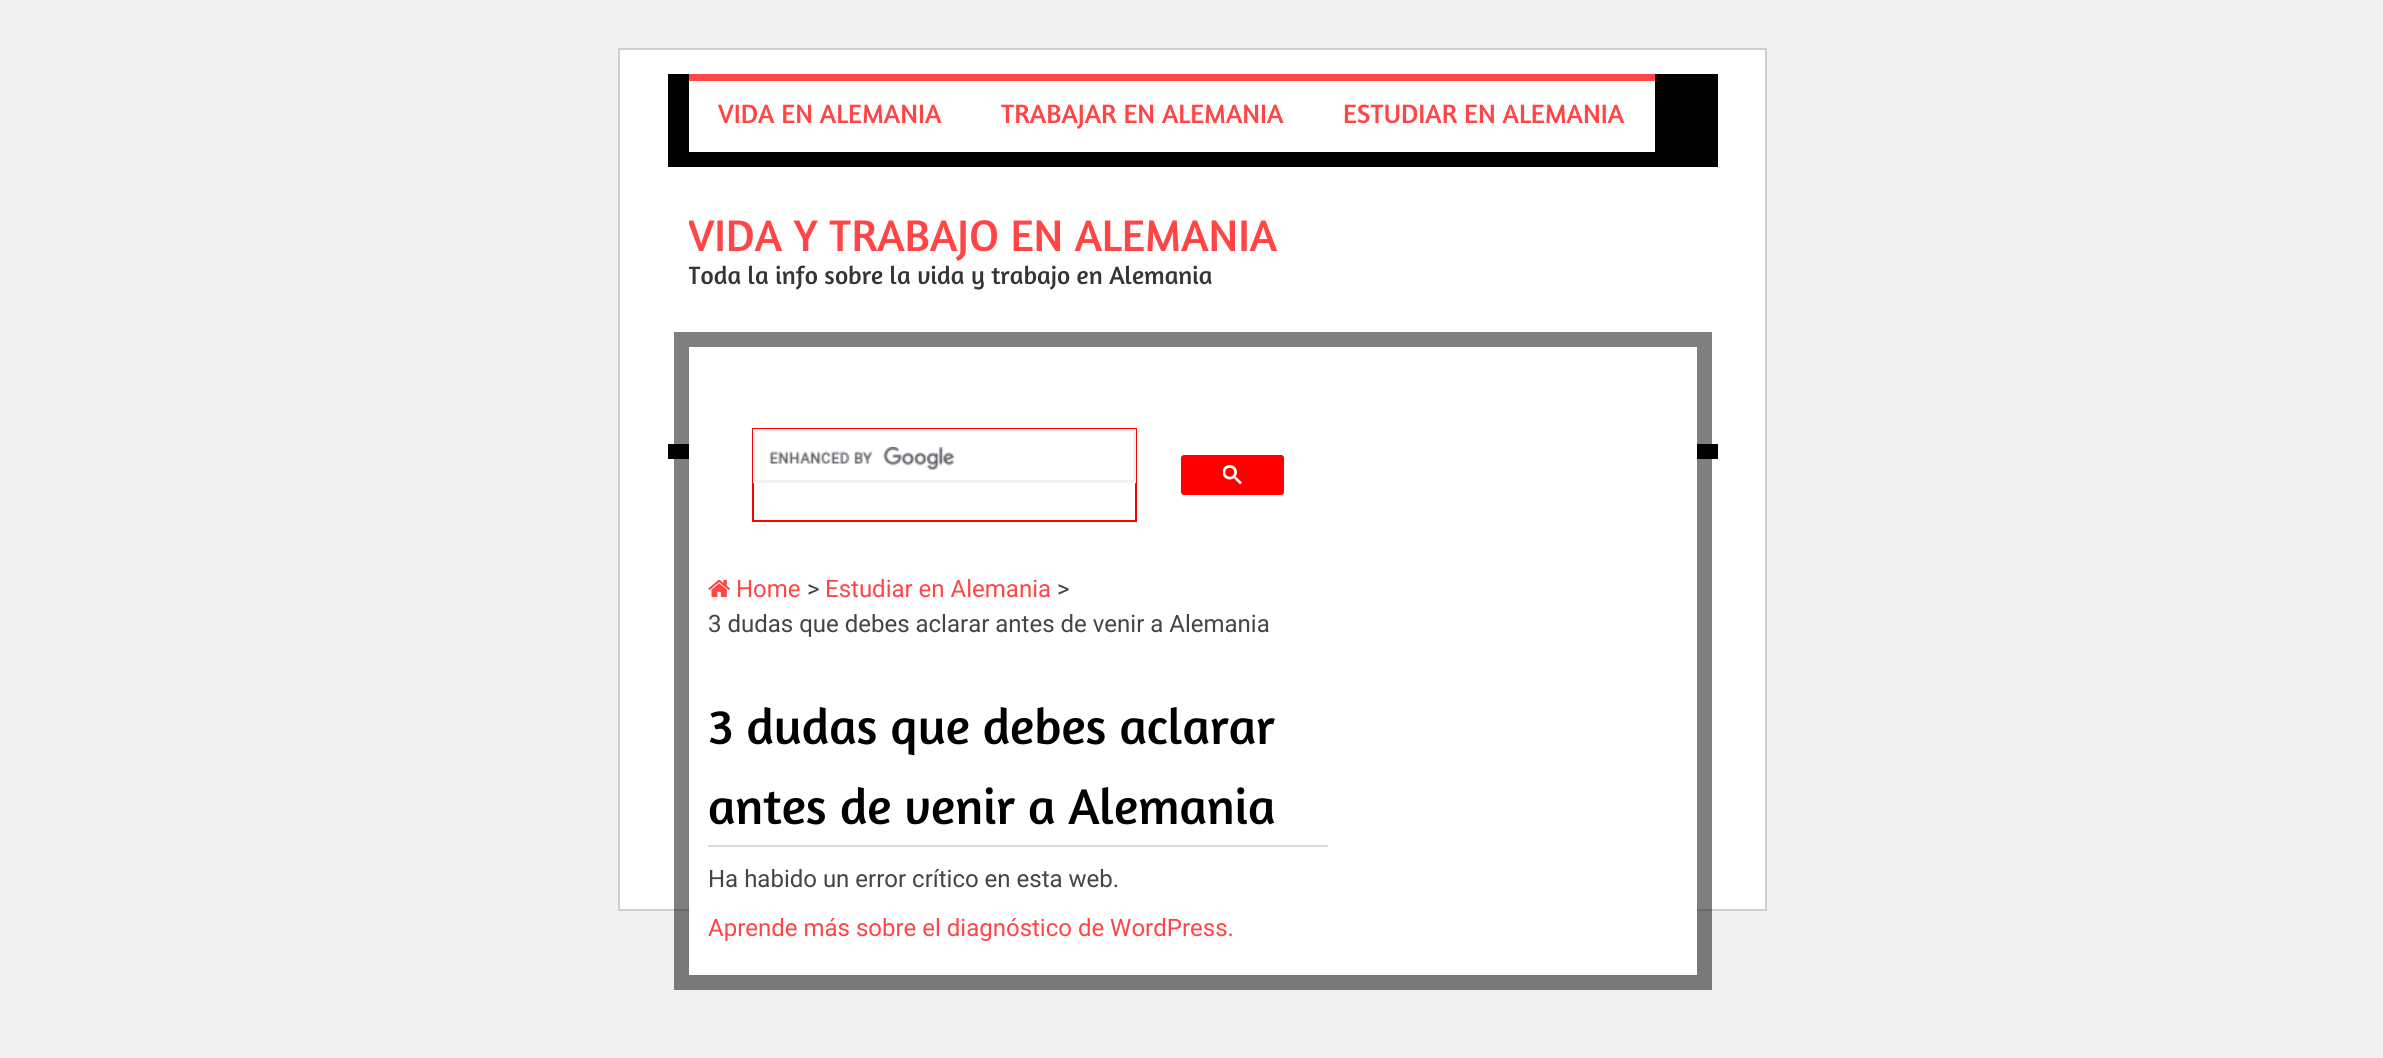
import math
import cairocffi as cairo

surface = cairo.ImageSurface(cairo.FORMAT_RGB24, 2383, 1058)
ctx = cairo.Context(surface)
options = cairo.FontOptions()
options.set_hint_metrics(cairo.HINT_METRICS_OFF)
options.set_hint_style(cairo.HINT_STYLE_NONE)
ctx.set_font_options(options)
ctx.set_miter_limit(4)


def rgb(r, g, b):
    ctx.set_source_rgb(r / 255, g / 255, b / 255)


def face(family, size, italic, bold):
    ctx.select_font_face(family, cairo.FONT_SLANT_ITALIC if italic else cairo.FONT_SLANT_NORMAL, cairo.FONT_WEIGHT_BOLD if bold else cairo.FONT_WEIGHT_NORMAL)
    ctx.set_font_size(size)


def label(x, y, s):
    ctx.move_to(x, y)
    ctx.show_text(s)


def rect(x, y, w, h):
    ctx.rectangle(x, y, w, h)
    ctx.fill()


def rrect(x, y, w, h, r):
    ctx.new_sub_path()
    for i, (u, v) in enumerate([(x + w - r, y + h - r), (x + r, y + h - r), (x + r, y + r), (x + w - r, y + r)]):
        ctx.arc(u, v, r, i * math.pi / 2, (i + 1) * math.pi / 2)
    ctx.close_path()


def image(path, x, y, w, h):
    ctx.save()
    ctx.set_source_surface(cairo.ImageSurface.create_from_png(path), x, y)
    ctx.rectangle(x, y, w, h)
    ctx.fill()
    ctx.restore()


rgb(241, 241, 241)
ctx.paint()
rgb(255, 255, 255)
ctx.rectangle(619, 49, 1147, 861)
ctx.fill_preserve()
rgb(204, 208, 212)
ctx.stroke()
rgb(0, 0, 0)
rect(668, 444, 1050, 15)
rgb(1, 1, 1)
rect(668, 74, 1050, 93)
rgb(255, 255, 255)
rect(689, 81, 966, 71)
rgb(255, 69, 69)
rect(689, 74, 966, 7)
face('Amaranth', 27, 0, 0)
label(718, 123, 'VIDA EN ALEMANIA')
label(1001, 123, 'TRABAJAR EN ALEMANIA')
label(1343, 123, 'ESTUDIAR EN ALEMANIA')
ctx.save()
ctx.rectangle(689, 212, 588, 79)
ctx.clip()
face('Amaranth', 45, 0, 0)
label(688, 251, 'VIDA Y TRABAJO EN ALEMANIA')
face('Amaranth', 25.5, 0, 0)
rgb(53, 53, 53)
label(688, 284, 'Toda la info sobre la vida y trabajo en Alemania')
ctx.restore()
ctx.set_source_rgba(0, 0, 0, 0.5)
rect(674, 332, 1038, 658)
rgb(255, 255, 255)
rect(689, 347, 1008, 628)
ctx.rectangle(753, 429, 383, 92)
rgb(255, 0, 0)
ctx.stroke()
rgb(241, 244, 246)
rect(753, 429, 383, 3)
rect(1133, 429, 3, 54)
rect(753, 480, 383, 3)
rect(753, 429, 3, 54)
image('image0.png', 769, 447, 185, 23)
rgb(255, 0, 0)
rrect(1182, 456, 101, 38, 2)
ctx.fill_preserve()
ctx.stroke()
image('image1.png', 1223, 465, 19, 20)
image('image2.png', 708, 579, 22, 18)
face('Roboto', 24, 0, 0)
rgb(255, 69, 69)
label(736, 597, 'Home')
rgb(68, 68, 68)
label(807, 597, '>')
rgb(255, 69, 69)
label(825, 597, 'Estudiar en Alemania')
rgb(68, 68, 68)
label(1057, 597, '>')
label(708, 632, '3 dudas que debes aclarar antes de venir a Alemania')
rgb(218, 218, 218)
rect(708, 845, 620, 2)
face('Amaranth', 51, 0, 0)
rgb(0, 0, 0)
label(708, 744, '3 dudas que debes aclarar')
label(708, 824, 'antes de venir a Alemania')
face('Roboto', 24, 0, 0)
rgb(68, 68, 68)
label(708, 887, 'Ha habido un error crítico en esta web.')
rgb(255, 69, 69)
label(708, 936, 'Aprende más sobre el diagnóstico de WordPress.')
surface.write_to_png('render.png')
